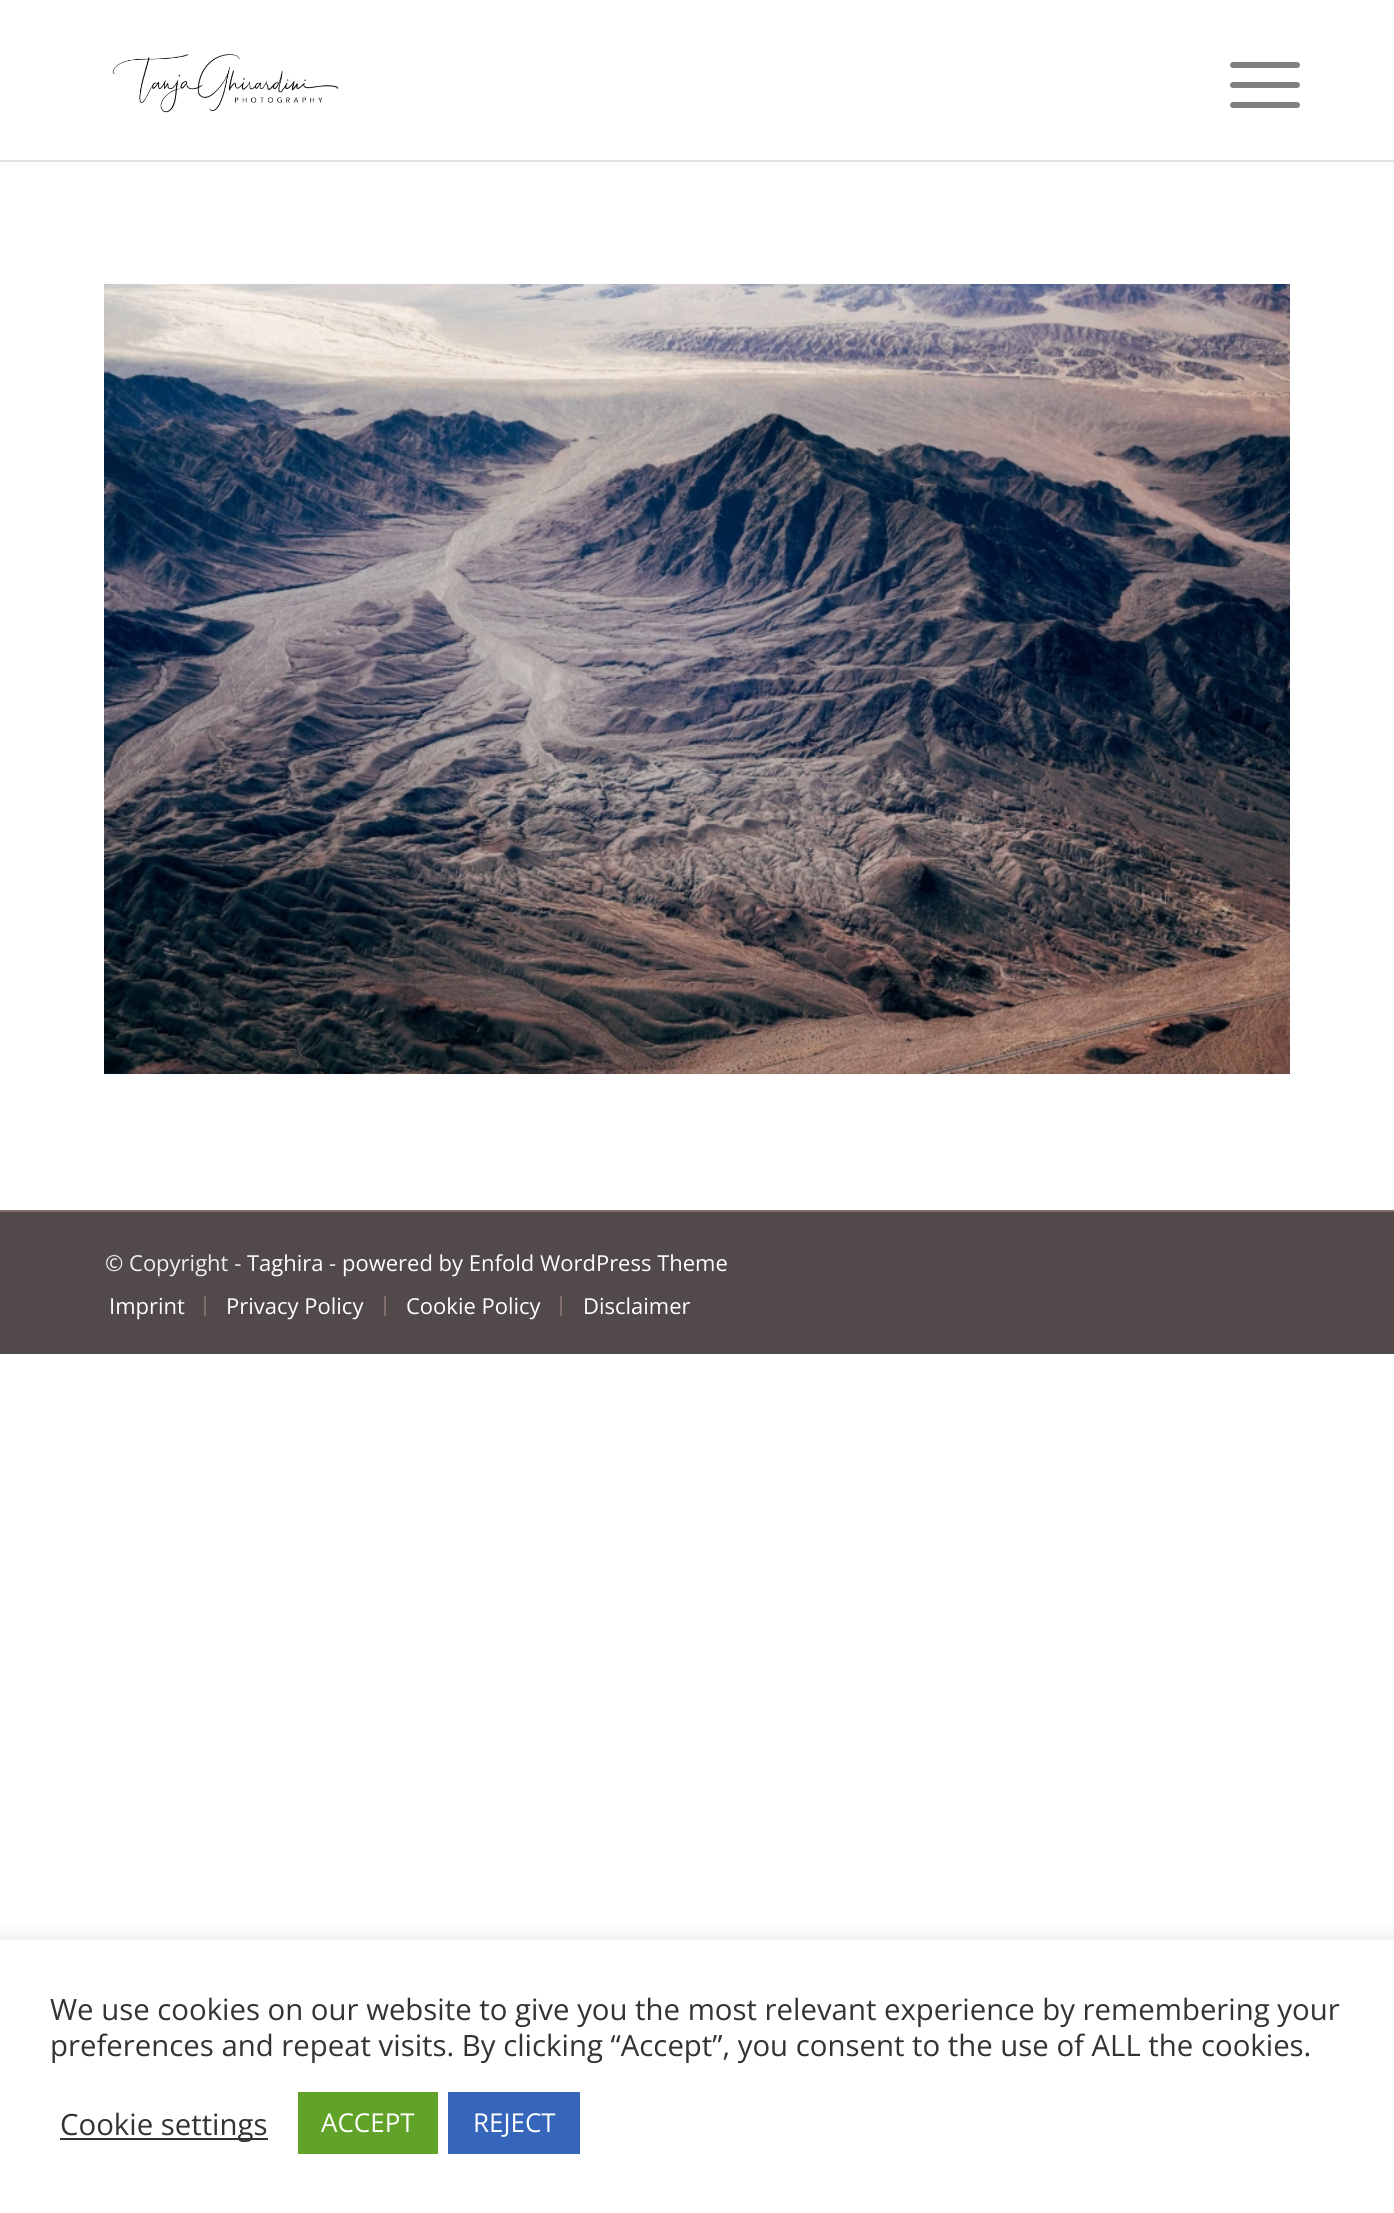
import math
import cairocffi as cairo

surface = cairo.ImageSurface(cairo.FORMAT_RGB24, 1394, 2213)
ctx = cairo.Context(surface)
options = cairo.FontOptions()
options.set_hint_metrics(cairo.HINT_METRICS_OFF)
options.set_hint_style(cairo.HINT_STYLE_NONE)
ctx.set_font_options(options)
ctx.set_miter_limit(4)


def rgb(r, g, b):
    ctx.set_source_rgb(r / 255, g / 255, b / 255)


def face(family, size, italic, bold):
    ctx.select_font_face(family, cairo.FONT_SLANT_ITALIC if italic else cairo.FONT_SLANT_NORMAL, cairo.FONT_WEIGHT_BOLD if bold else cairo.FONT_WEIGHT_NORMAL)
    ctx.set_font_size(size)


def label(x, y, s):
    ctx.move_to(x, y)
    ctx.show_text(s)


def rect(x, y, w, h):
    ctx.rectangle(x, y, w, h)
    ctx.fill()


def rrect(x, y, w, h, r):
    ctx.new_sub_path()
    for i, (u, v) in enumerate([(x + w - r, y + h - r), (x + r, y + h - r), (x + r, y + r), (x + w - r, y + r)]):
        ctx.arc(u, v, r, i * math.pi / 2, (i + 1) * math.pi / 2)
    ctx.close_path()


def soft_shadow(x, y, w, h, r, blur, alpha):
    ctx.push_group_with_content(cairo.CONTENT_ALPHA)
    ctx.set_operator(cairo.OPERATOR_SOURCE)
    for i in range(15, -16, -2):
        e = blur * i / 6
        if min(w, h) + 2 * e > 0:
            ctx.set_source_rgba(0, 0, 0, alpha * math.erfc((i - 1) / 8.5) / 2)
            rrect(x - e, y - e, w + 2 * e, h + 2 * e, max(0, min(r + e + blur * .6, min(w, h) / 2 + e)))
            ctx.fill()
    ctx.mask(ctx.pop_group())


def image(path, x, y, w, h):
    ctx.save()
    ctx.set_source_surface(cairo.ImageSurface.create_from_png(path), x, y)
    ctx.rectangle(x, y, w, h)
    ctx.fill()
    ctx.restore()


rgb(255, 255, 255)
ctx.paint()
rgb(225, 225, 225)
rect(0, 160, 1394, 2)
image('image0.png', 112, 54, 226, 59)
rgb(128, 128, 128)
rrect(1230, 82, 70, 6, 3)
ctx.fill()
rrect(1230, 62, 70, 6, 3)
ctx.fill()
rrect(1230, 102, 70, 6, 3)
ctx.fill()
image('image1.png', 104, 284, 1186, 790)
rgb(82, 74, 74)
rect(0, 1212, 1394, 142)
rgb(128, 110, 110)
rect(0, 1210, 1394, 2)
face('Open Sans', 22, 0, 0)
rgb(238, 238, 238)
label(105, 1271, '© Copyright -')
rgb(255, 255, 255)
label(247, 1271, 'Taghira')
rgb(238, 238, 238)
label(329, 1271, '-')
rgb(255, 255, 255)
label(342, 1271, 'powered by Enfold WordPress Theme')
label(109, 1314, 'Imprint')
rgb(128, 110, 110)
rect(204, 1296, 2, 20)
rgb(255, 255, 255)
label(226, 1314, 'Privacy Policy')
rgb(128, 110, 110)
rect(384, 1296, 2, 20)
rgb(255, 255, 255)
label(406, 1314, 'Cookie Policy')
rgb(128, 110, 110)
rect(560, 1296, 2, 20)
rgb(255, 255, 255)
label(583, 1314, 'Disclaimer')
ctx.save()
ctx.rectangle(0, 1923, 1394, 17)
ctx.clip()
rgb(172, 171, 171)
soft_shadow(0, 1938, 1394, 274, 0, 10, 0.3)
ctx.restore()
face('Open Sans', 29.35, 0, 0)
rgb(51, 51, 51)
label(50, 2020, 'We use cookies on our website to give you the most relevant experience by remembering your')
label(50, 2056, 'preferences and repeat visits. By clicking “Accept”, you consent to the use of ALL the cookies.')
rect(60, 2138, 208, 2)
label(60, 2135, 'Cookie settings')
rgb(97, 162, 41)
rect(298, 2092, 140, 62)
face('Open Sans', 26, 0, 0)
rgb(255, 255, 255)
label(321, 2132, 'ACCEPT')
rgb(53, 102, 187)
rect(448, 2092, 132, 62)
rgb(255, 255, 255)
label(473, 2132, 'REJECT')
surface.write_to_png('render.png')
